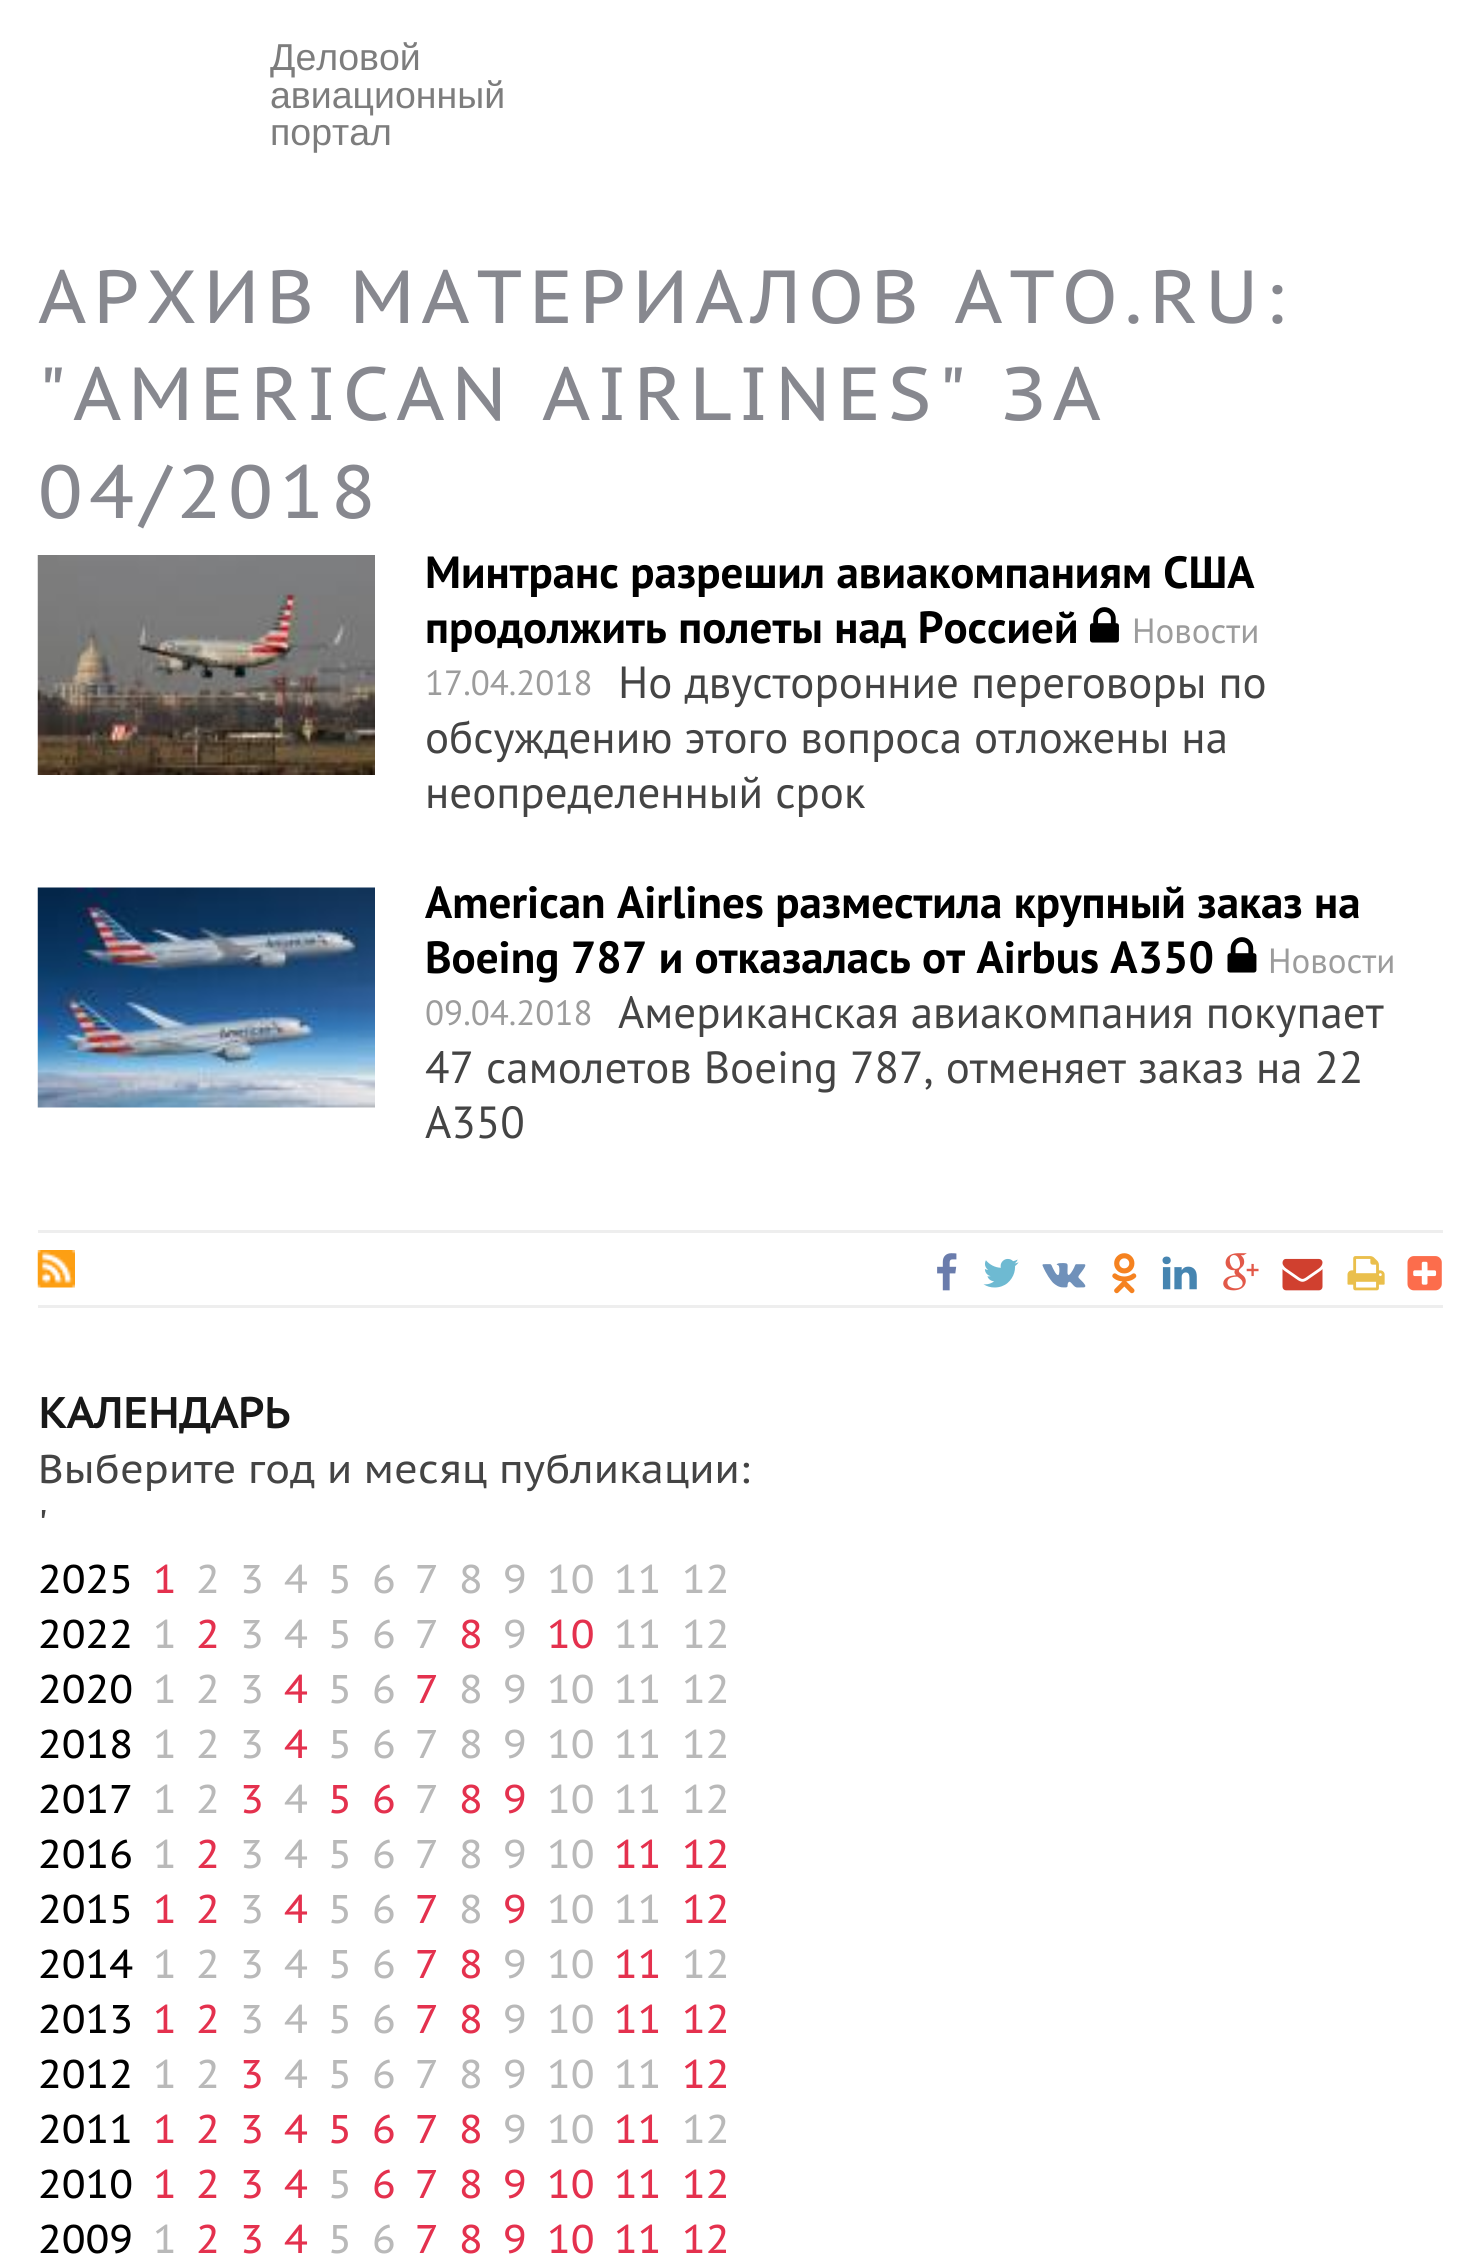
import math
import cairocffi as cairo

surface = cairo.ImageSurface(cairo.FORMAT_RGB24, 1480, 2263)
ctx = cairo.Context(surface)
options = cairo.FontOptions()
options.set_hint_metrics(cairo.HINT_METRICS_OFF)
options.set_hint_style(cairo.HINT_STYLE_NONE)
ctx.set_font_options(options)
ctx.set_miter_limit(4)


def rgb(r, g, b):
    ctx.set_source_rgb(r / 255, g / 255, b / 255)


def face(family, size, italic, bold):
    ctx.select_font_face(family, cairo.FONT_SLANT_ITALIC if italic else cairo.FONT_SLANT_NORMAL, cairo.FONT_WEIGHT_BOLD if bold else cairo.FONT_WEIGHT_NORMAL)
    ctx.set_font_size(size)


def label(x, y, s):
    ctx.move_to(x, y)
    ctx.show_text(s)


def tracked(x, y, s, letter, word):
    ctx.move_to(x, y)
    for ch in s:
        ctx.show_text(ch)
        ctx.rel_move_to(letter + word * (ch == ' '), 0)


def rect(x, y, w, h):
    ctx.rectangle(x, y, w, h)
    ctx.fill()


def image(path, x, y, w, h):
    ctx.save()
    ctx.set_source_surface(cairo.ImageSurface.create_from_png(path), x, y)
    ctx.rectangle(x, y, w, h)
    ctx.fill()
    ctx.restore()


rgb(255, 255, 255)
ctx.paint()
face('Liberation Sans', 37.5, 0, 0)
rgb(125, 125, 125)
label(270, 70, 'Деловой')
label(270, 108, 'авиационный')
label(270, 145, 'портал')
face('PT Sans Caption', 75, 0, 0)
rgb(135, 136, 143)
tracked(38, 323, 'АРХИВ МАТЕРИАЛОВ ATO.RU:', 6.75, 0)
tracked(38, 420, '"AMERICAN AIRLINES" ЗА', 6.75, 0)
tracked(38, 518, '04/2018', 6.75, 0)
image('image0.png', 37, 555, 338, 220)
face('PT Sans', 45, 0, 1)
rgb(0, 0, 0)
label(425, 588, 'Минтранс разрешил авиакомпаниям США')
label(425, 643, 'продолжить полеты над Россией')
image('image1.png', 1090, 607, 29, 36)
face('PT Sans', 35, 0, 0)
rgb(156, 156, 156)
label(1132, 643, 'Новости')
label(425, 695, '17.04.2018')
face('PT Sans', 45, 0, 0)
rgb(68, 68, 68)
label(618, 698, 'Но двусторонние переговоры по')
label(425, 753, 'обсуждению этого вопроса отложены на')
label(425, 808, 'неопределенный срок')
image('image2.png', 37, 887, 338, 221)
face('PT Sans', 45, 0, 1)
rgb(0, 0, 0)
label(425, 918, 'American Airlines разместила крупный заказ на')
label(425, 973, 'Boeing 787 и отказалась от Airbus A350')
image('image3.png', 1227, 937, 30, 36)
face('PT Sans', 35, 0, 0)
rgb(156, 156, 156)
label(1268, 973, 'Новости')
label(425, 1025, '09.04.2018')
face('PT Sans', 45, 0, 0)
rgb(68, 68, 68)
label(618, 1028, 'Американская авиакомпания покупает')
label(425, 1083, '47 самолетов Boeing 787, отменяет заказ на 22')
label(425, 1138, 'A350')
rgb(238, 238, 238)
rect(38, 1230, 1405, 3)
rect(38, 1305, 1405, 3)
image('image4.png', 37, 1250, 38, 38)
image('image5.png', 937, 1253, 20, 38)
image('image6.png', 983, 1258, 36, 30)
image('image7.png', 1042, 1263, 44, 25)
image('image8.png', 1112, 1253, 25, 41)
image('image9.png', 1162, 1256, 35, 34)
image('image10.png', 1223, 1253, 36, 38)
image('image11.png', 1282, 1258, 41, 33)
image('image12.png', 1347, 1256, 38, 35)
image('image13.png', 1407, 1256, 35, 35)
face('PT Sans Caption', 42.5, 0, 1)
rgb(24, 24, 24)
label(38, 1428, 'КАЛЕНДАРЬ')
face('PT Sans Caption', 40, 0, 0)
rgb(68, 68, 68)
label(38, 1483, 'Выберите год и месяц публикации:')
label(38, 1538, '\'')
rgb(0, 0, 0)
label(38, 1593, '2025')
rgb(228, 49, 78)
label(153, 1593, '1')
rgb(185, 185, 185)
label(196, 1593, '2')
label(240, 1593, '3')
label(284, 1593, '4')
label(328, 1593, '5')
label(372, 1593, '6')
label(415, 1593, '7')
label(459, 1593, '8')
label(503, 1593, '9')
label(547, 1593, '10')
label(614, 1593, '11')
label(682, 1593, '12')
rgb(0, 0, 0)
label(38, 1648, '2022')
rgb(185, 185, 185)
label(153, 1648, '1')
rgb(228, 49, 78)
label(196, 1648, '2')
rgb(185, 185, 185)
label(240, 1648, '3')
label(284, 1648, '4')
label(328, 1648, '5')
label(372, 1648, '6')
label(415, 1648, '7')
rgb(228, 49, 78)
label(459, 1648, '8')
rgb(185, 185, 185)
label(503, 1648, '9')
rgb(228, 49, 78)
label(547, 1648, '10')
rgb(185, 185, 185)
label(614, 1648, '11')
label(682, 1648, '12')
rgb(0, 0, 0)
label(38, 1703, '2020')
rgb(185, 185, 185)
label(153, 1703, '1')
label(196, 1703, '2')
label(240, 1703, '3')
rgb(228, 49, 78)
label(284, 1703, '4')
rgb(185, 185, 185)
label(328, 1703, '5')
label(372, 1703, '6')
rgb(228, 49, 78)
label(415, 1703, '7')
rgb(185, 185, 185)
label(459, 1703, '8')
label(503, 1703, '9')
label(547, 1703, '10')
label(614, 1703, '11')
label(682, 1703, '12')
rgb(0, 0, 0)
label(38, 1758, '2018')
rgb(185, 185, 185)
label(153, 1758, '1')
label(196, 1758, '2')
label(240, 1758, '3')
rgb(228, 49, 78)
label(284, 1758, '4')
rgb(185, 185, 185)
label(328, 1758, '5')
label(372, 1758, '6')
label(415, 1758, '7')
label(459, 1758, '8')
label(503, 1758, '9')
label(547, 1758, '10')
label(614, 1758, '11')
label(682, 1758, '12')
rgb(0, 0, 0)
label(38, 1813, '2017')
rgb(185, 185, 185)
label(153, 1813, '1')
label(196, 1813, '2')
rgb(228, 49, 78)
label(240, 1813, '3')
rgb(185, 185, 185)
label(284, 1813, '4')
rgb(228, 49, 78)
label(328, 1813, '5')
label(372, 1813, '6')
rgb(185, 185, 185)
label(415, 1813, '7')
rgb(228, 49, 78)
label(459, 1813, '8')
label(503, 1813, '9')
rgb(185, 185, 185)
label(547, 1813, '10')
label(614, 1813, '11')
label(682, 1813, '12')
rgb(0, 0, 0)
label(38, 1868, '2016')
rgb(185, 185, 185)
label(153, 1868, '1')
rgb(228, 49, 78)
label(196, 1868, '2')
rgb(185, 185, 185)
label(240, 1868, '3')
label(284, 1868, '4')
label(328, 1868, '5')
label(372, 1868, '6')
label(415, 1868, '7')
label(459, 1868, '8')
label(503, 1868, '9')
label(547, 1868, '10')
rgb(228, 49, 78)
label(614, 1868, '11')
label(682, 1868, '12')
rgb(0, 0, 0)
label(38, 1923, '2015')
rgb(228, 49, 78)
label(153, 1923, '1')
label(196, 1923, '2')
rgb(185, 185, 185)
label(240, 1923, '3')
rgb(228, 49, 78)
label(284, 1923, '4')
rgb(185, 185, 185)
label(328, 1923, '5')
label(372, 1923, '6')
rgb(228, 49, 78)
label(415, 1923, '7')
rgb(185, 185, 185)
label(459, 1923, '8')
rgb(228, 49, 78)
label(503, 1923, '9')
rgb(185, 185, 185)
label(547, 1923, '10')
label(614, 1923, '11')
rgb(228, 49, 78)
label(682, 1923, '12')
rgb(0, 0, 0)
label(38, 1978, '2014')
rgb(185, 185, 185)
label(153, 1978, '1')
label(196, 1978, '2')
label(240, 1978, '3')
label(284, 1978, '4')
label(328, 1978, '5')
label(372, 1978, '6')
rgb(228, 49, 78)
label(415, 1978, '7')
label(459, 1978, '8')
rgb(185, 185, 185)
label(503, 1978, '9')
label(547, 1978, '10')
rgb(228, 49, 78)
label(614, 1978, '11')
rgb(185, 185, 185)
label(682, 1978, '12')
rgb(0, 0, 0)
label(38, 2033, '2013')
rgb(228, 49, 78)
label(153, 2033, '1')
label(196, 2033, '2')
rgb(185, 185, 185)
label(240, 2033, '3')
label(284, 2033, '4')
label(328, 2033, '5')
label(372, 2033, '6')
rgb(228, 49, 78)
label(415, 2033, '7')
label(459, 2033, '8')
rgb(185, 185, 185)
label(503, 2033, '9')
label(547, 2033, '10')
rgb(228, 49, 78)
label(614, 2033, '11')
label(682, 2033, '12')
rgb(0, 0, 0)
label(38, 2088, '2012')
rgb(185, 185, 185)
label(153, 2088, '1')
label(196, 2088, '2')
rgb(228, 49, 78)
label(240, 2088, '3')
rgb(185, 185, 185)
label(284, 2088, '4')
label(328, 2088, '5')
label(372, 2088, '6')
label(415, 2088, '7')
label(459, 2088, '8')
label(503, 2088, '9')
label(547, 2088, '10')
label(614, 2088, '11')
rgb(228, 49, 78)
label(682, 2088, '12')
rgb(0, 0, 0)
label(38, 2143, '2011')
rgb(228, 49, 78)
label(153, 2143, '1')
label(196, 2143, '2')
label(240, 2143, '3')
label(284, 2143, '4')
label(328, 2143, '5')
label(372, 2143, '6')
label(415, 2143, '7')
label(459, 2143, '8')
rgb(185, 185, 185)
label(503, 2143, '9')
label(547, 2143, '10')
rgb(228, 49, 78)
label(614, 2143, '11')
rgb(185, 185, 185)
label(682, 2143, '12')
rgb(0, 0, 0)
label(38, 2198, '2010')
rgb(228, 49, 78)
label(153, 2198, '1')
label(196, 2198, '2')
label(240, 2198, '3')
label(284, 2198, '4')
rgb(185, 185, 185)
label(328, 2198, '5')
rgb(228, 49, 78)
label(372, 2198, '6')
label(415, 2198, '7')
label(459, 2198, '8')
label(503, 2198, '9')
label(547, 2198, '10')
label(614, 2198, '11')
label(682, 2198, '12')
rgb(0, 0, 0)
label(38, 2253, '2009')
rgb(185, 185, 185)
label(153, 2253, '1')
rgb(228, 49, 78)
label(196, 2253, '2')
label(240, 2253, '3')
label(284, 2253, '4')
rgb(185, 185, 185)
label(328, 2253, '5')
label(372, 2253, '6')
rgb(228, 49, 78)
label(415, 2253, '7')
label(459, 2253, '8')
label(503, 2253, '9')
label(547, 2253, '10')
label(614, 2253, '11')
label(682, 2253, '12')
surface.write_to_png('render.png')
